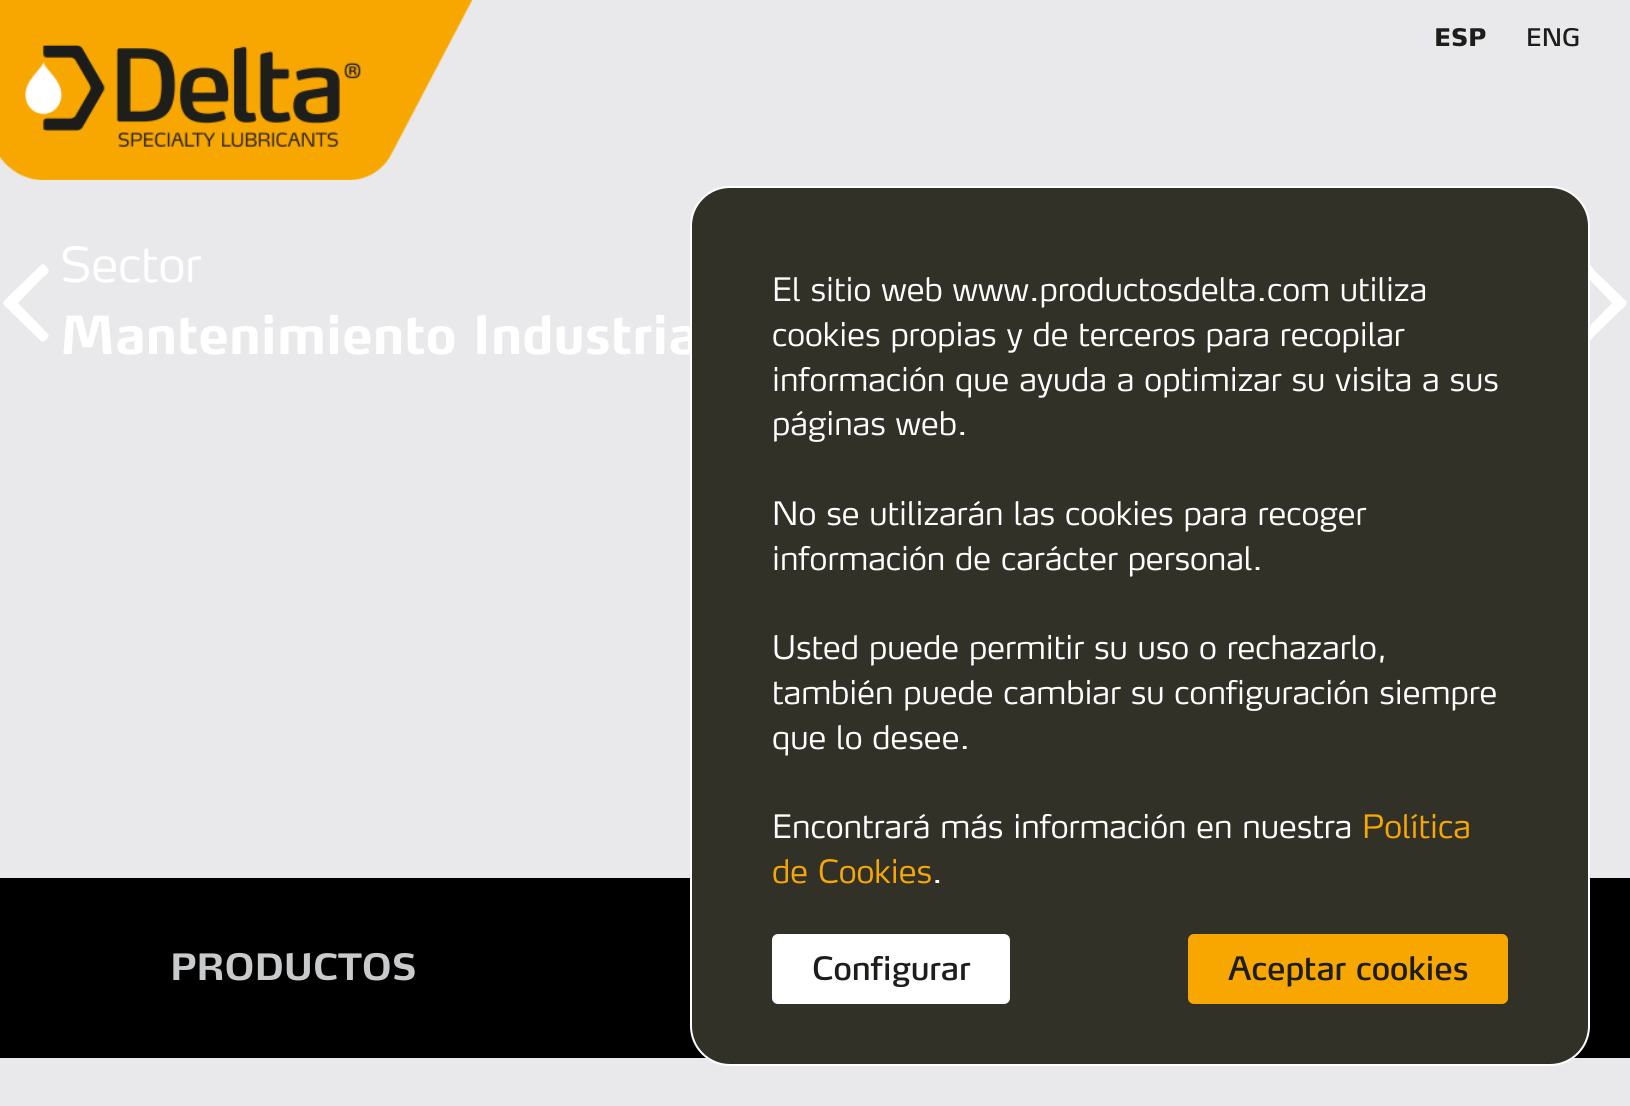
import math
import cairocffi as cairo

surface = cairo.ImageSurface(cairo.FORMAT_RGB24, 1630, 1106)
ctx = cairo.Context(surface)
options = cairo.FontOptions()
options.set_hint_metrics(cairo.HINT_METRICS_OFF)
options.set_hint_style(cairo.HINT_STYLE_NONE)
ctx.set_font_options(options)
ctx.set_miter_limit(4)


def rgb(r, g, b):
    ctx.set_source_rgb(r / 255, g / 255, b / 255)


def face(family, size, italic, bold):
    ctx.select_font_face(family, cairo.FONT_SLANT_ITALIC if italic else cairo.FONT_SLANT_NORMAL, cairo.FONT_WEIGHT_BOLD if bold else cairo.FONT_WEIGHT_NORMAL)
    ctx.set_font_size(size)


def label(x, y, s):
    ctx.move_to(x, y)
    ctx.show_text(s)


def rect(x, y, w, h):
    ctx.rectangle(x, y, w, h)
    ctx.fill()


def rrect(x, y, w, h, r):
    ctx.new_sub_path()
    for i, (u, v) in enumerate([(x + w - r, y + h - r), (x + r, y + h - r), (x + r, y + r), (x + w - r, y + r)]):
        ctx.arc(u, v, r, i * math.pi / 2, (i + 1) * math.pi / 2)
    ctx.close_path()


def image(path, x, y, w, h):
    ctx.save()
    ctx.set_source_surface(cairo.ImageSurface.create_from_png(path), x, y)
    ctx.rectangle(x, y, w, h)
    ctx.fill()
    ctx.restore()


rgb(233, 233, 235)
ctx.paint()
image('image0.png', 0, 0, 472, 180)
face('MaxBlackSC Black', 24, 0, 0)
rgb(29, 29, 28)
label(1434, 46, 'ESP')
face('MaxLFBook', 24, 0, 0)
label(1526, 46, 'ENG')
rgb(255, 255, 255)
ctx.new_path()
ctx.move_to(48, 269)
ctx.curve_to(51, 272, 44, 277, 43, 277)
ctx.line_to(18, 303)
ctx.line_to(48, 334)
ctx.curve_to(50, 336, 47, 339, 46, 340)
ctx.curve_to(44, 341, 43, 343, 41, 341)
ctx.line_to(10, 311)
ctx.curve_to(1, 302, 1, 304, 10, 295)
ctx.line_to(41, 265)
ctx.curve_to(43, 262, 47, 267, 48, 269)
ctx.close_path()
ctx.fill()
face('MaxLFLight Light', 48, 0, 0)
label(60, 282, 'Sector')
face('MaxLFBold', 52, 0, 1)
label(60, 354, 'Mantenimiento Industria')
ctx.new_path()
ctx.move_to(1626, 301)
ctx.curve_to(1629, 305, 1620, 310, 1620, 311)
ctx.line_to(1595, 335)
ctx.curve_to(1595, 335, 1589, 344, 1586, 341)
ctx.curve_to(1584, 340, 1579, 336, 1582, 334)
ctx.line_to(1612, 303)
ctx.line_to(1587, 277)
ctx.curve_to(1586, 277, 1580, 272, 1581, 269)
ctx.line_to(1584, 266)
ctx.curve_to(1589, 261, 1591, 266, 1595, 271)
ctx.close_path()
ctx.fill()
rgb(0, 0, 0)
rect(0, 878, 1630, 180)
face('MaxLFBold', 36, 0, 1)
rgb(200, 202, 204)
label(170, 980, 'PRODUCTOS')
rgb(49, 49, 40)
rrect(691, 187, 898, 878, 39)
ctx.fill_preserve()
rgb(255, 255, 255)
ctx.stroke()
face('MaxLFLight Light', 32, 0, 0)
label(772, 301, 'El sitio web www.productosdelta.com utiliza')
label(772, 346, 'cookies propias y de terceros para recopilar')
label(772, 391, 'información que ayuda a optimizar su visita a sus')
label(772, 435, 'páginas web.')
label(772, 525, 'No se utilizarán las cookies para recoger')
label(772, 570, 'información de carácter personal.')
label(772, 659, 'Usted puede permitir su uso o rechazarlo,')
label(772, 704, 'también puede cambiar su configuración siempre')
label(772, 749, 'que lo desee.')
label(772, 838, 'Encontrará más información en nuestra')
rgb(247, 167, 5)
label(1362, 838, 'Política')
label(772, 883, 'de Cookies')
rgb(255, 255, 255)
label(932, 883, '.')
rrect(772, 934, 238, 70, 6)
ctx.fill()
face('MaxLFBook', 32, 0, 0)
rgb(29, 29, 28)
label(812, 980, 'Configurar')
rgb(247, 167, 0)
rrect(1188, 934, 320, 70, 6)
ctx.fill()
rgb(29, 29, 28)
label(1228, 980, 'Aceptar cookies')
surface.write_to_png('render.png')
